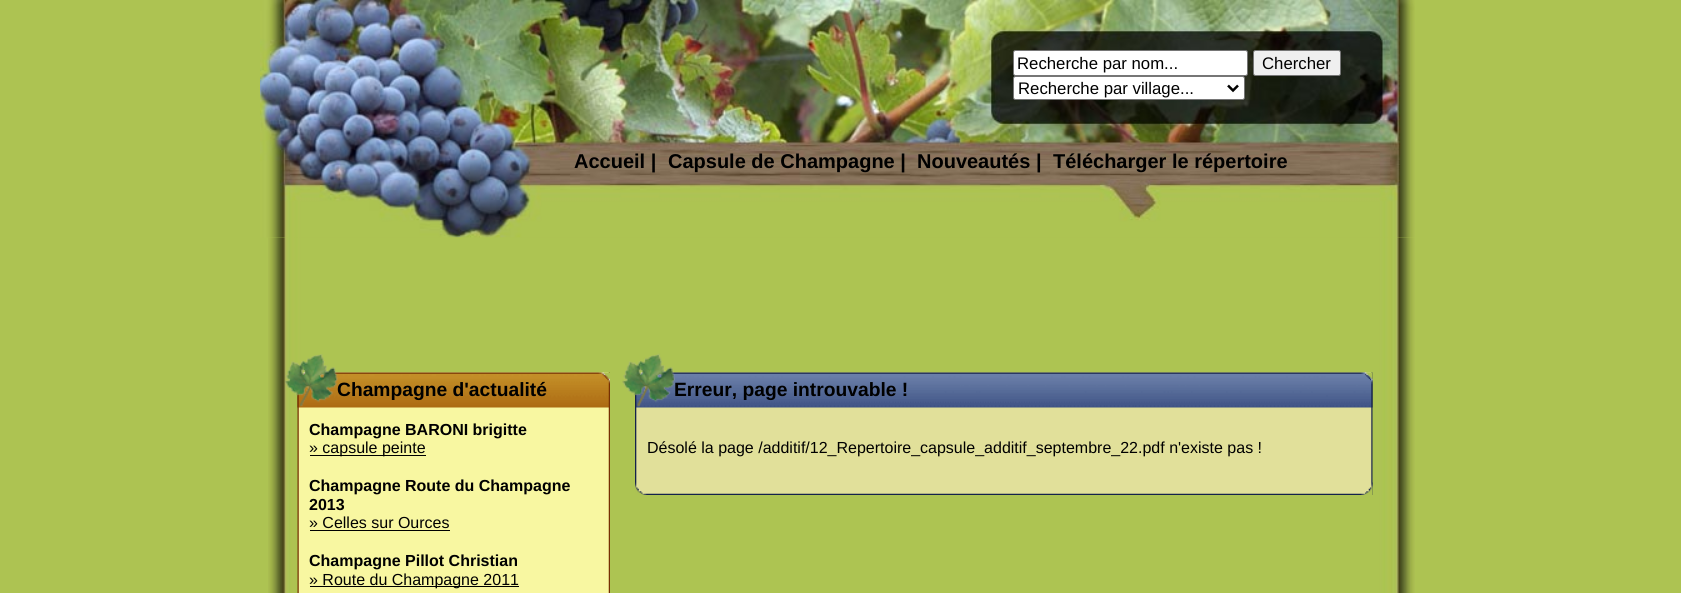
import math
import cairocffi as cairo

surface = cairo.ImageSurface(cairo.FORMAT_RGB24, 1681, 593)
ctx = cairo.Context(surface)
options = cairo.FontOptions()
options.set_hint_metrics(cairo.HINT_METRICS_OFF)
options.set_hint_style(cairo.HINT_STYLE_NONE)
ctx.set_font_options(options)
ctx.set_miter_limit(4)


def rgb(r, g, b):
    ctx.set_source_rgb(r / 255, g / 255, b / 255)


def face(family, size, italic, bold):
    ctx.select_font_face(family, cairo.FONT_SLANT_ITALIC if italic else cairo.FONT_SLANT_NORMAL, cairo.FONT_WEIGHT_BOLD if bold else cairo.FONT_WEIGHT_NORMAL)
    ctx.set_font_size(size)


def label(x, y, s):
    ctx.move_to(x, y)
    ctx.show_text(s)


def rect(x, y, w, h):
    ctx.rectangle(x, y, w, h)
    ctx.fill()


def rrect(x, y, w, h, r):
    ctx.new_sub_path()
    for i, (u, v) in enumerate([(x + w - r, y + h - r), (x + r, y + h - r), (x + r, y + r), (x + w - r, y + r)]):
        ctx.arc(u, v, r, i * math.pi / 2, (i + 1) * math.pi / 2)
    ctx.close_path()


def image(path, x, y, w, h):
    ctx.save()
    ctx.set_source_surface(cairo.ImageSurface.create_from_png(path), x, y)
    ctx.rectangle(x, y, w, h)
    ctx.fill()
    ctx.restore()


rgb(173, 195, 82)
ctx.paint()
image('image0.png', 260, 0, 1155, 238)
rgb(255, 255, 255)
rrect(1013.5, 50.5, 234, 25, 2)
ctx.fill_preserve()
rgb(118, 118, 118)
ctx.set_line_width(1)
ctx.stroke()
face('Liberation Sans', 16.75, 0, 0)
rgb(0, 0, 0)
label(1017, 69, 'Recherche par nom...')
rgb(239, 239, 239)
rrect(1253.5, 50.5, 87, 25, 2)
ctx.fill_preserve()
rgb(118, 118, 118)
ctx.stroke()
rgb(0, 0, 0)
label(1262, 69, 'Chercher')
rgb(255, 255, 255)
rrect(1013.5, 76.5, 231, 23, 2)
ctx.fill_preserve()
rgb(118, 118, 118)
ctx.stroke()
ctx.new_path()
ctx.move_to(1228, 85.5)
ctx.line_to(1233, 90.5)
ctx.line_to(1238, 85.5)
rgb(0, 0, 0)
ctx.set_line_width(2.5)
ctx.stroke()
label(1018, 94, 'Recherche par village...')
face('Liberation Sans', 20, 0, 1)
label(574, 168, 'Accueil |')
label(668, 168, 'Capsule de Champagne |')
label(917, 168, 'Nouveautés |')
label(1053, 168, 'Télécharger le répertoire')
image('image1.png', 268, 237, 1147, 356)
image('image3.png', 297, 372, 313, 221)
image('image4.png', 297, 372, 313, 36)
face('Liberation Sans', 19.25, 0, 1)
label(337, 396, 'Champagne d\'actualité')
image('image2.png', 285, 354, 53, 53)
face('Liberation Sans', 16, 0, 1)
label(309, 435, 'Champagne BARONI brigitte')
rect(310, 455, 116, 1)
face('Liberation Sans', 16, 0, 0)
label(309, 453, '» capsule peinte')
face('Liberation Sans', 16, 0, 1)
label(309, 491, 'Champagne Route du Champagne')
label(309, 510, '2013')
face('Liberation Sans', 16, 0, 0)
label(309, 528, '» Celles sur Ources')
rect(310, 530, 140, 1)
face('Liberation Sans', 16, 0, 1)
label(309, 566, 'Champagne Pillot Christian')
rect(310, 586, 209, 1)
face('Liberation Sans', 16, 0, 0)
label(309, 585, '» Route du Champagne 2011')
image('image6.png', 635, 372, 738, 123)
image('image7.png', 635, 372, 738, 36)
image('image5.png', 622, 353, 53, 54)
face('Liberation Sans', 19.25, 0, 1)
label(674, 396, 'Erreur, page introuvable !')
face('Liberation Sans', 16, 0, 0)
label(647, 453, 'Désolé la page /additif/12_Repertoire_capsule_additif_septembre_22.pdf n\'existe pas !')
image('image8.png', 635, 482, 738, 13)
surface.write_to_png('render.png')
